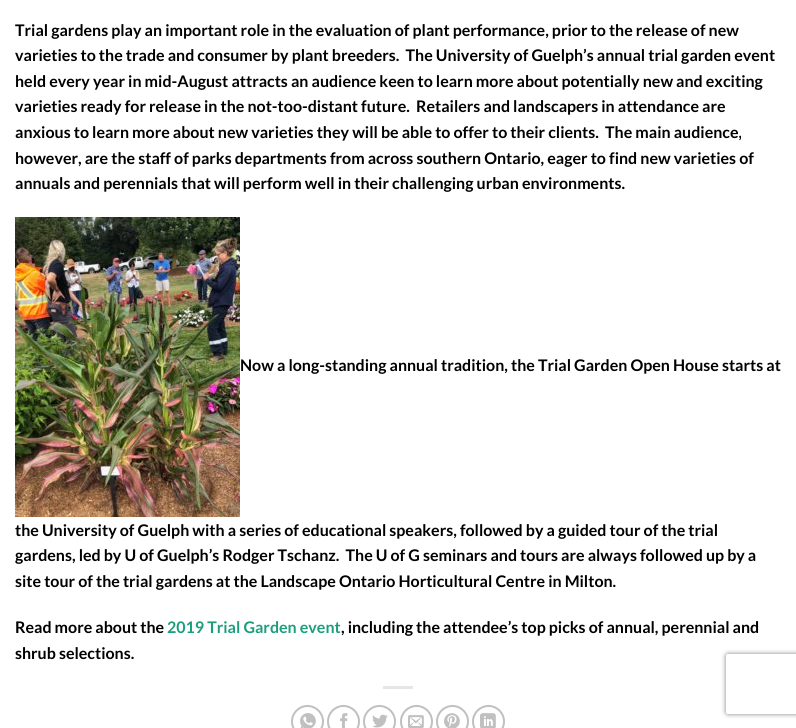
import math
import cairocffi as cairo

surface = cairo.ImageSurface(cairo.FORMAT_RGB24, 796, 728)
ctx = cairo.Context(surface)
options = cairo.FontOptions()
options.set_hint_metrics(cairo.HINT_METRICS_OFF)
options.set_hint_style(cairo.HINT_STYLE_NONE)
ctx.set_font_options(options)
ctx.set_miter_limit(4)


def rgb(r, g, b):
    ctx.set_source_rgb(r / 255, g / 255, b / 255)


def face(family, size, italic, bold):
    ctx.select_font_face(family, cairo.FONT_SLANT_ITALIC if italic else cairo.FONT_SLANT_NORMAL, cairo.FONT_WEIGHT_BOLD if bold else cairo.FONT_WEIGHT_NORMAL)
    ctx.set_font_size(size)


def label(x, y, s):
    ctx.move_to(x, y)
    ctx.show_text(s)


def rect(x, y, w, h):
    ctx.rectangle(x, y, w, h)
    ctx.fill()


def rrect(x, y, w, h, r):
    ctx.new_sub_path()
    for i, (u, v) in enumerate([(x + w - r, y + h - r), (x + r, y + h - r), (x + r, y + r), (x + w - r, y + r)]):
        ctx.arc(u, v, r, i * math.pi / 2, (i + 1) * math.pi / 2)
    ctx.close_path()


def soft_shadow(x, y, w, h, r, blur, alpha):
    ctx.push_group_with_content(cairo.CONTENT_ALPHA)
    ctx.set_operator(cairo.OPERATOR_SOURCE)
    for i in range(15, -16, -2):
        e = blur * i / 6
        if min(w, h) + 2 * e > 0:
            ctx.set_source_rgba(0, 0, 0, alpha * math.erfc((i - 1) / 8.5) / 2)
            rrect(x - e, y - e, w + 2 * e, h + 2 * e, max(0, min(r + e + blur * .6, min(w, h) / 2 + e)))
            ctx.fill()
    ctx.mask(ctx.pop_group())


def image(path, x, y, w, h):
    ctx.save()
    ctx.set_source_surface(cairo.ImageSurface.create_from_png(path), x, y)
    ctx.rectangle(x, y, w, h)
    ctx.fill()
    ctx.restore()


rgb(255, 255, 255)
ctx.paint()
face('Lato', 16, 0, 1)
rgb(0, 0, 0)
label(15, 36, 'Trial gardens play an important role in the evaluation of plant performance, prior to the release of new')
label(15, 61, 'varieties to the trade and consumer by plant breeders.  The University of Guelph’s annual trial garden event')
label(15, 87, 'held every year in mid-August attracts an audience keen to learn more about potentially new and exciting')
label(15, 112, 'varieties ready for release in the not-too-distant future.  Retailers and landscapers in attendance are')
label(15, 138, 'anxious to learn more about new varieties they will be able to offer to their clients.  The main audience,')
label(15, 164, 'however, are the staff of parks departments from across southern Ontario, eager to find new varieties of')
label(15, 189, 'annuals and perennials that will perform well in their challenging urban environments.')
image('image0.png', 15, 217, 225, 300)
label(240, 371, 'Now a long-standing annual tradition, the Trial Garden Open House starts at')
label(15, 536, 'the University of Guelph with a series of educational speakers, followed by a guided tour of the trial')
label(15, 561, 'gardens, led by U of Guelph’s Rodger Tschanz.  The U of G seminars and tours are always followed up by a')
label(15, 587, 'site tour of the trial gardens at the Landscape Ontario Horticultural Centre in Milton.')
label(15, 633, 'Read more about the')
rgb(27, 158, 124)
label(167, 633, '2019 Trial Garden event')
rgb(0, 0, 0)
label(341, 633, ', including the attendee’s top picks of annual, perennial and')
label(15, 659, 'shrub selections.')
rgb(230, 230, 230)
rect(383, 686, 30, 3)
ctx.new_path()
ctx.arc(307.5, 721.5, 15.5, 0, 2 * math.pi)
rgb(192, 192, 192)
ctx.stroke()
image('image1.png', 300, 713, 16, 15)
ctx.arc(343.5, 721.5, 15.5, 0, 2 * math.pi)
ctx.stroke()
image('image2.png', 340, 713, 8, 15)
ctx.arc(379.5, 721.5, 15.5, 0, 2 * math.pi)
ctx.stroke()
image('image3.png', 372, 714, 16, 14)
ctx.arc(416.5, 721.5, 15.5, 0, 2 * math.pi)
ctx.stroke()
image('image4.png', 408, 715, 16, 13)
ctx.arc(452.5, 721.5, 15.5, 0, 2 * math.pi)
ctx.stroke()
image('image5.png', 444, 713, 16, 15)
ctx.arc(488.5, 721.5, 15.5, 0, 2 * math.pi)
ctx.stroke()
image('image6.png', 480, 713, 16, 15)
ctx.save()
ctx.set_fill_rule(cairo.FILL_RULE_EVEN_ODD)
ctx.new_path()
ctx.move_to(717, 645)
ctx.line_to(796, 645)
ctx.line_to(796, 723)
ctx.line_to(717, 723)
ctx.close_path()
ctx.move_to(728, 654)
ctx.line_to(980, 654)
ctx.curve_to(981, 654, 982, 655, 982, 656)
ctx.line_to(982, 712)
ctx.curve_to(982, 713, 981, 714, 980, 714)
ctx.line_to(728, 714)
ctx.curve_to(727, 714, 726, 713, 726, 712)
ctx.line_to(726, 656)
ctx.curve_to(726, 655, 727, 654, 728, 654)
ctx.close_path()
ctx.clip()
rgb(128, 128, 128)
soft_shadow(726, 654, 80, 60, 2, 2.5, 1)
ctx.restore()
surface.write_to_png('render.png')
